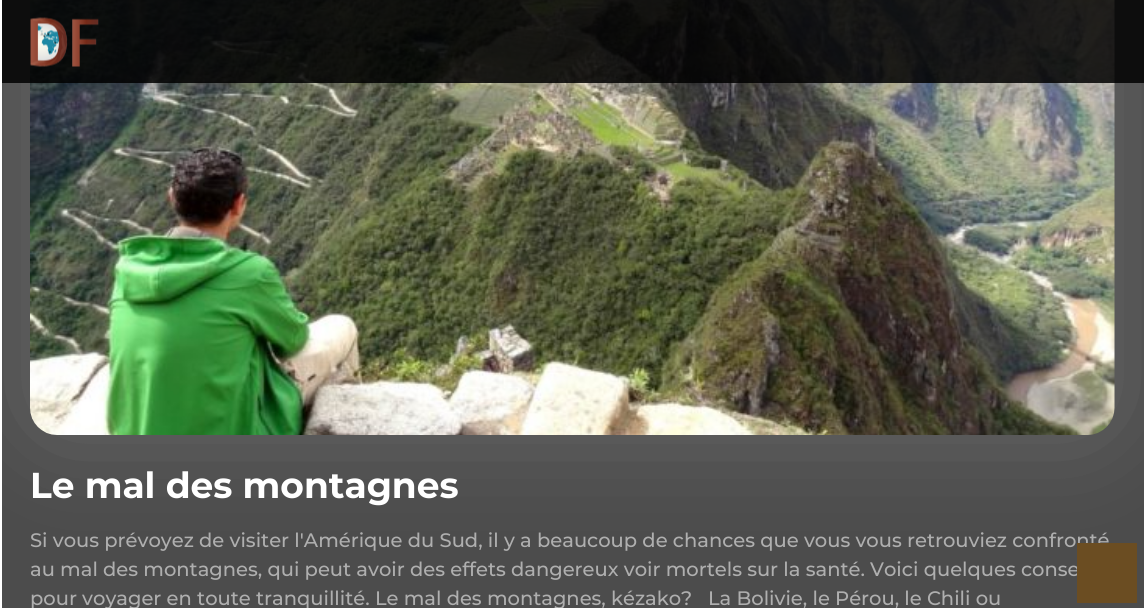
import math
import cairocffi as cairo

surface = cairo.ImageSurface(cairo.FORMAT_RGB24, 1144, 608)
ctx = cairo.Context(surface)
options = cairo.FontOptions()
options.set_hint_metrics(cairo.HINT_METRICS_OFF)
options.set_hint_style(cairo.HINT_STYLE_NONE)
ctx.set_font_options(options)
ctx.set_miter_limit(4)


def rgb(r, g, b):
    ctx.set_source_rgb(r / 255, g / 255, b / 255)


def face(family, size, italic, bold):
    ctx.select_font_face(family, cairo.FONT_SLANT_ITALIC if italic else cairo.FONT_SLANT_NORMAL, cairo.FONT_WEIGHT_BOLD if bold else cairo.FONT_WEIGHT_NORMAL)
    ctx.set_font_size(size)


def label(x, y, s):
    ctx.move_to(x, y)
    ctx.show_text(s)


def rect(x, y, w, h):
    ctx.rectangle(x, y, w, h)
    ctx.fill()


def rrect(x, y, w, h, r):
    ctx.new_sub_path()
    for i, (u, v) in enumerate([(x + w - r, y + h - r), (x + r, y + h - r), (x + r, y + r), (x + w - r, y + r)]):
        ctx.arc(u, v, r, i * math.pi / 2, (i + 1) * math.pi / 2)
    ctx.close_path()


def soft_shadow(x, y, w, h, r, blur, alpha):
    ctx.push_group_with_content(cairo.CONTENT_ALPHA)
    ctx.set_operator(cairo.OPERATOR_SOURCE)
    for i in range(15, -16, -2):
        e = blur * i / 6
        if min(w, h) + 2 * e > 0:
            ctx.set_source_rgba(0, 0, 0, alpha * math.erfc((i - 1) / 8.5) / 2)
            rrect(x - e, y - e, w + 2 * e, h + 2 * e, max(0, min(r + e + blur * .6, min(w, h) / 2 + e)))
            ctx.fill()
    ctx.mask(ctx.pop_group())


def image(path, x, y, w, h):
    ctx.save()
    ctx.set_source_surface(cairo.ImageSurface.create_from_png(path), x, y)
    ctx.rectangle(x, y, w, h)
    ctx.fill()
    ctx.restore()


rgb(255, 255, 255)
ctx.paint()
rgb(76, 76, 76)
rect(2, 0, 1142, 608)
rgb(255, 255, 255)
soft_shadow(30, -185, 1085, 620, 27, 52.5, 0.15)
image('image1.png', 30, 0, 1085, 435)
ctx.set_source_rgba(0, 0, 0, 0.85)
rect(2, 0, 1142, 83)
image('image0.png', 30, 17, 69, 50)
face('Montserrat', 36, 0, 1)
rgb(255, 255, 255)
label(30, 498, 'Le mal des montagnes')
face('Montserrat Medium', 19.5, 0, 0)
rgb(175, 175, 175)
label(30, 547, 'Si vous prévoyez de visiter l\'Amérique du Sud, il y a beaucoup de chances que vous vous retrouviez confronté')
label(30, 576, 'au mal des montagnes, qui peut avoir des effets dangereux voir mortels sur la santé. Voici quelques conse')
label(30, 605, 'pour voyager en toute tranquillité. Le mal des montagnes, kézako?')
label(708, 605, 'La Bolivie, le Pérou, le Chili ou')
rgb(107, 77, 34)
rect(1077, 543, 60, 60)
surface.write_to_png('render.png')
